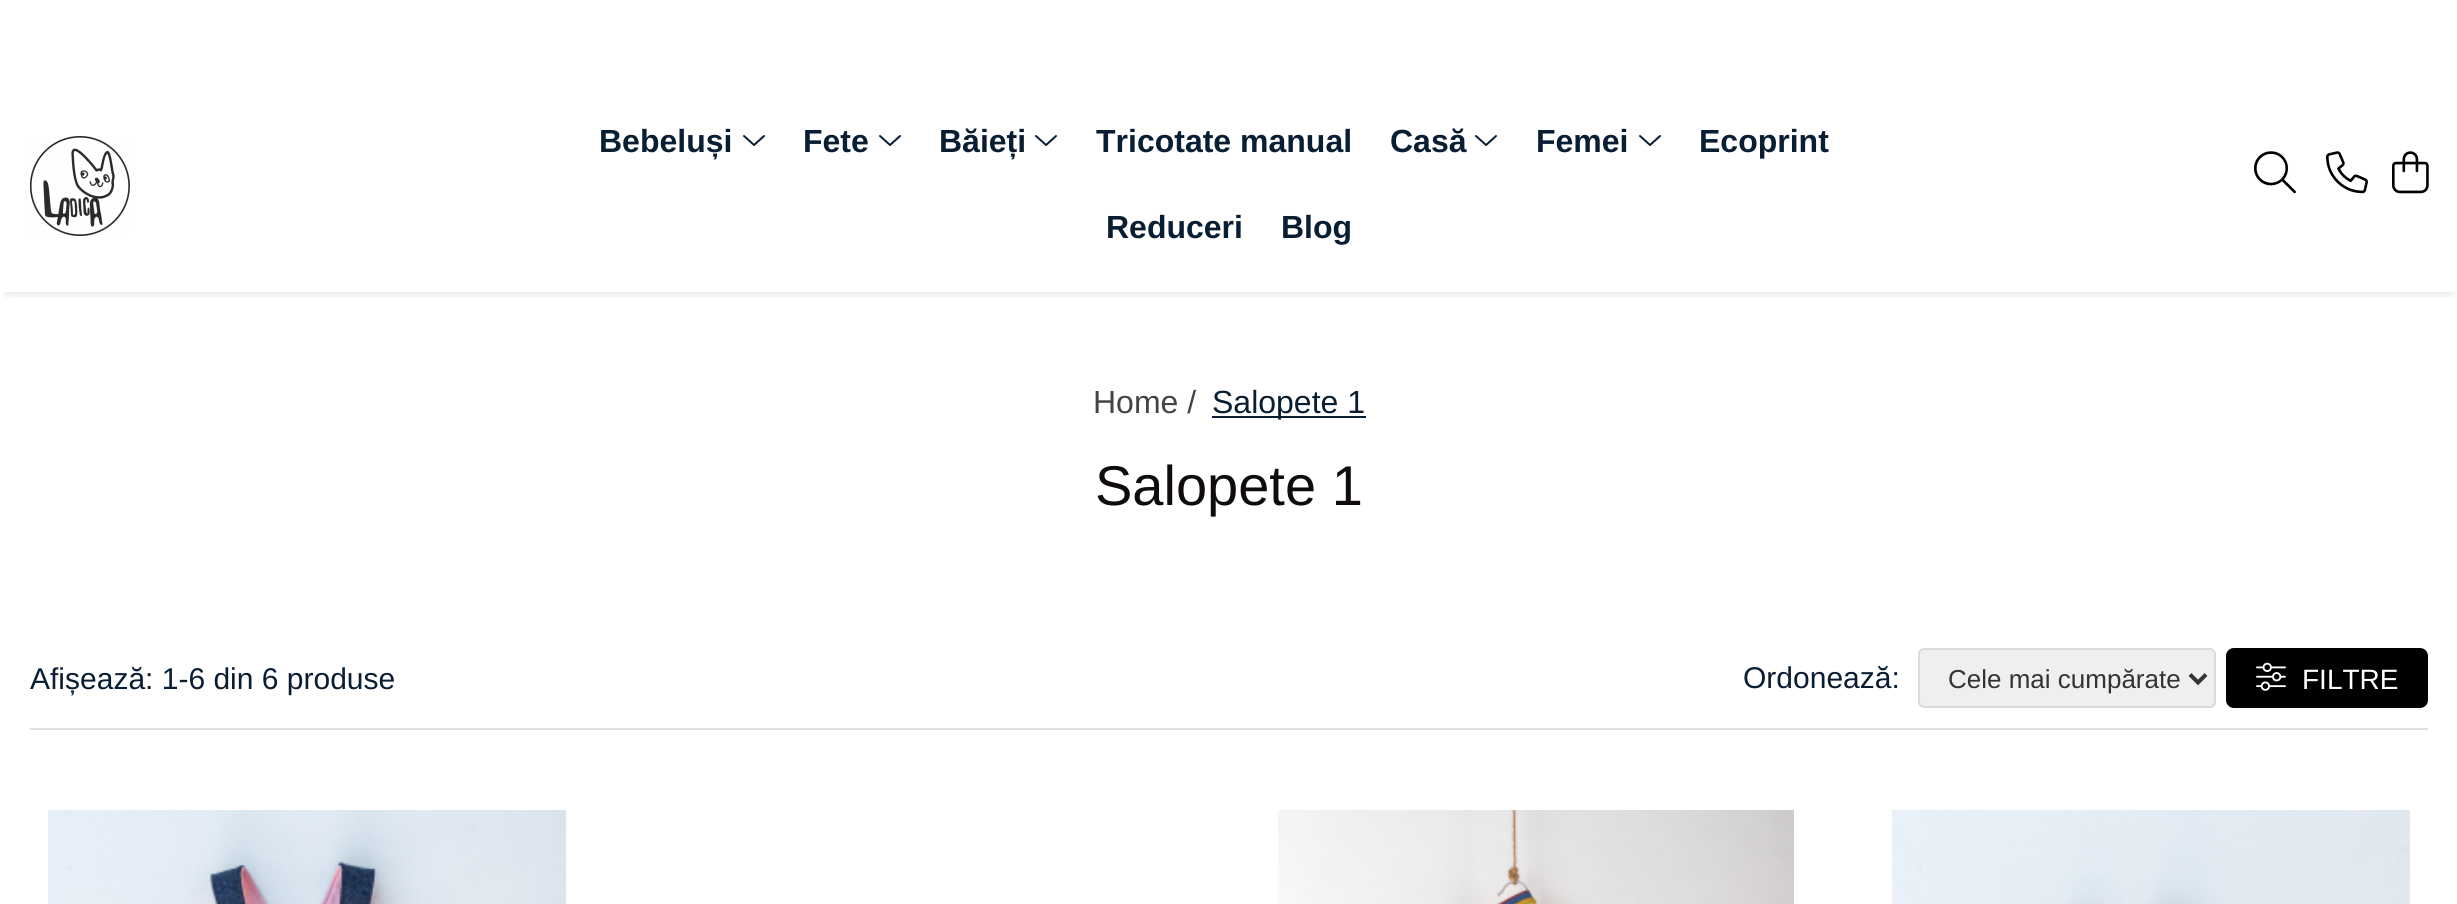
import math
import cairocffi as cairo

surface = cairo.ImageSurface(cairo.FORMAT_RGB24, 2457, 904)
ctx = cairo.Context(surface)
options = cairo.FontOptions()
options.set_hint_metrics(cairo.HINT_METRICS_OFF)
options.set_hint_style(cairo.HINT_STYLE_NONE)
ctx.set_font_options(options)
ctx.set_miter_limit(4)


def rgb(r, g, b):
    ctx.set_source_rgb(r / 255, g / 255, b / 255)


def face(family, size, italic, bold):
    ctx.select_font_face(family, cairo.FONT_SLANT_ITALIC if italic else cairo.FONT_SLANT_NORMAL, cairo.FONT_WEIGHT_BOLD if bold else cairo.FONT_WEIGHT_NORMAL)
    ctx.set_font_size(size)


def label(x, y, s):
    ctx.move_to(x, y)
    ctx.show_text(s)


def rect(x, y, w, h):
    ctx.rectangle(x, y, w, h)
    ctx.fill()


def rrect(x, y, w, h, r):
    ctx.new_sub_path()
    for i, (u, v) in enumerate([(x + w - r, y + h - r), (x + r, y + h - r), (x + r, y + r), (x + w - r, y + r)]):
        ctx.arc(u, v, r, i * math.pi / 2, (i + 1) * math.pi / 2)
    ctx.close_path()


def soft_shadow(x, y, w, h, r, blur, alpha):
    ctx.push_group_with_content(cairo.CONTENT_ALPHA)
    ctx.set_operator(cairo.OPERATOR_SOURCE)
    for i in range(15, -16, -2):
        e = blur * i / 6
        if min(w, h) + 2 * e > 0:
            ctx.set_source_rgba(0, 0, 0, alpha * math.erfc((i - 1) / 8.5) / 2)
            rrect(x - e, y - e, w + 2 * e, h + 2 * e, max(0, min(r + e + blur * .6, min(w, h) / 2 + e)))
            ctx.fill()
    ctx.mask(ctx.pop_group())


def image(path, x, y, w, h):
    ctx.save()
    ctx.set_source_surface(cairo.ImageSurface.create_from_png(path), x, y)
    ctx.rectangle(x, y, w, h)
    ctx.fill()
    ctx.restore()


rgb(255, 255, 255)
ctx.paint()
ctx.save()
ctx.rectangle(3, 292, 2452, 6)
ctx.clip()
rgb(0, 0, 0)
soft_shadow(8, 12, 2442, 276, 0, 7, 0.3)
ctx.restore()
image('image0.png', 30, 136, 100, 100)
face('Liberation Sans', 32, 0, 1)
rgb(10, 30, 51)
label(599, 152, 'Bebeluși')
image('image1.png', 743, 135, 22, 11)
label(803, 152, 'Fete')
image('image1.png', 879, 135, 22, 11)
label(939, 152, 'Băieți')
image('image1.png', 1035, 135, 22, 11)
label(1096, 152, 'Tricotate manual')
label(1390, 152, 'Casă')
image('image1.png', 1475, 135, 22, 11)
label(1536, 152, 'Femei')
image('image1.png', 1639, 135, 22, 11)
label(1699, 152, 'Ecoprint')
label(1106, 238, 'Reduceri')
label(1281, 238, 'Blog')
image('image2.png', 2254, 151, 42, 43)
image('image3.png', 2326, 151, 42, 43)
image('image4.png', 2392, 151, 37, 43)
face('Liberation Sans', 32, 0, 0)
rgb(68, 68, 68)
label(1093, 413, 'Home /')
rgb(10, 30, 51)
rect(1212, 416, 154, 2)
label(1212, 413, 'Salopete 1')
face('Liberation Sans', 56, 0, 0)
rgb(15, 11, 15)
label(1095, 505, 'Salopete 1')
rgb(223, 223, 223)
rect(30, 728, 2398, 2)
face('Liberation Sans', 30, 0, 0)
rgb(10, 30, 51)
label(30, 689, 'Afișează: 1-6 din 6 produse')
label(1743, 688, 'Ordonează:')
rgb(239, 239, 239)
rrect(1919, 649, 296, 58, 5)
ctx.fill_preserve()
rgb(219, 219, 219)
ctx.stroke()
ctx.new_path()
ctx.move_to(2190, 674.5)
ctx.line_to(2198, 682.5)
ctx.line_to(2206, 674.5)
rgb(51, 51, 51)
ctx.set_line_width(4)
ctx.stroke()
face('Liberation Sans', 26, 0, 0)
label(1948, 688, 'Cele mai cumpărate')
rgb(0, 0, 0)
rrect(2226, 648, 202, 60, 8)
ctx.fill()
image('image5.png', 2256, 662, 30, 29)
face('Liberation Sans', 28, 0, 0)
rgb(255, 255, 255)
label(2302, 689, 'FILTRE')
image('image6.png', 48, 810, 518, 94)
image('image7.png', 1278, 810, 516, 94)
image('image8.png', 1892, 810, 518, 94)
surface.write_to_png('render.png')
